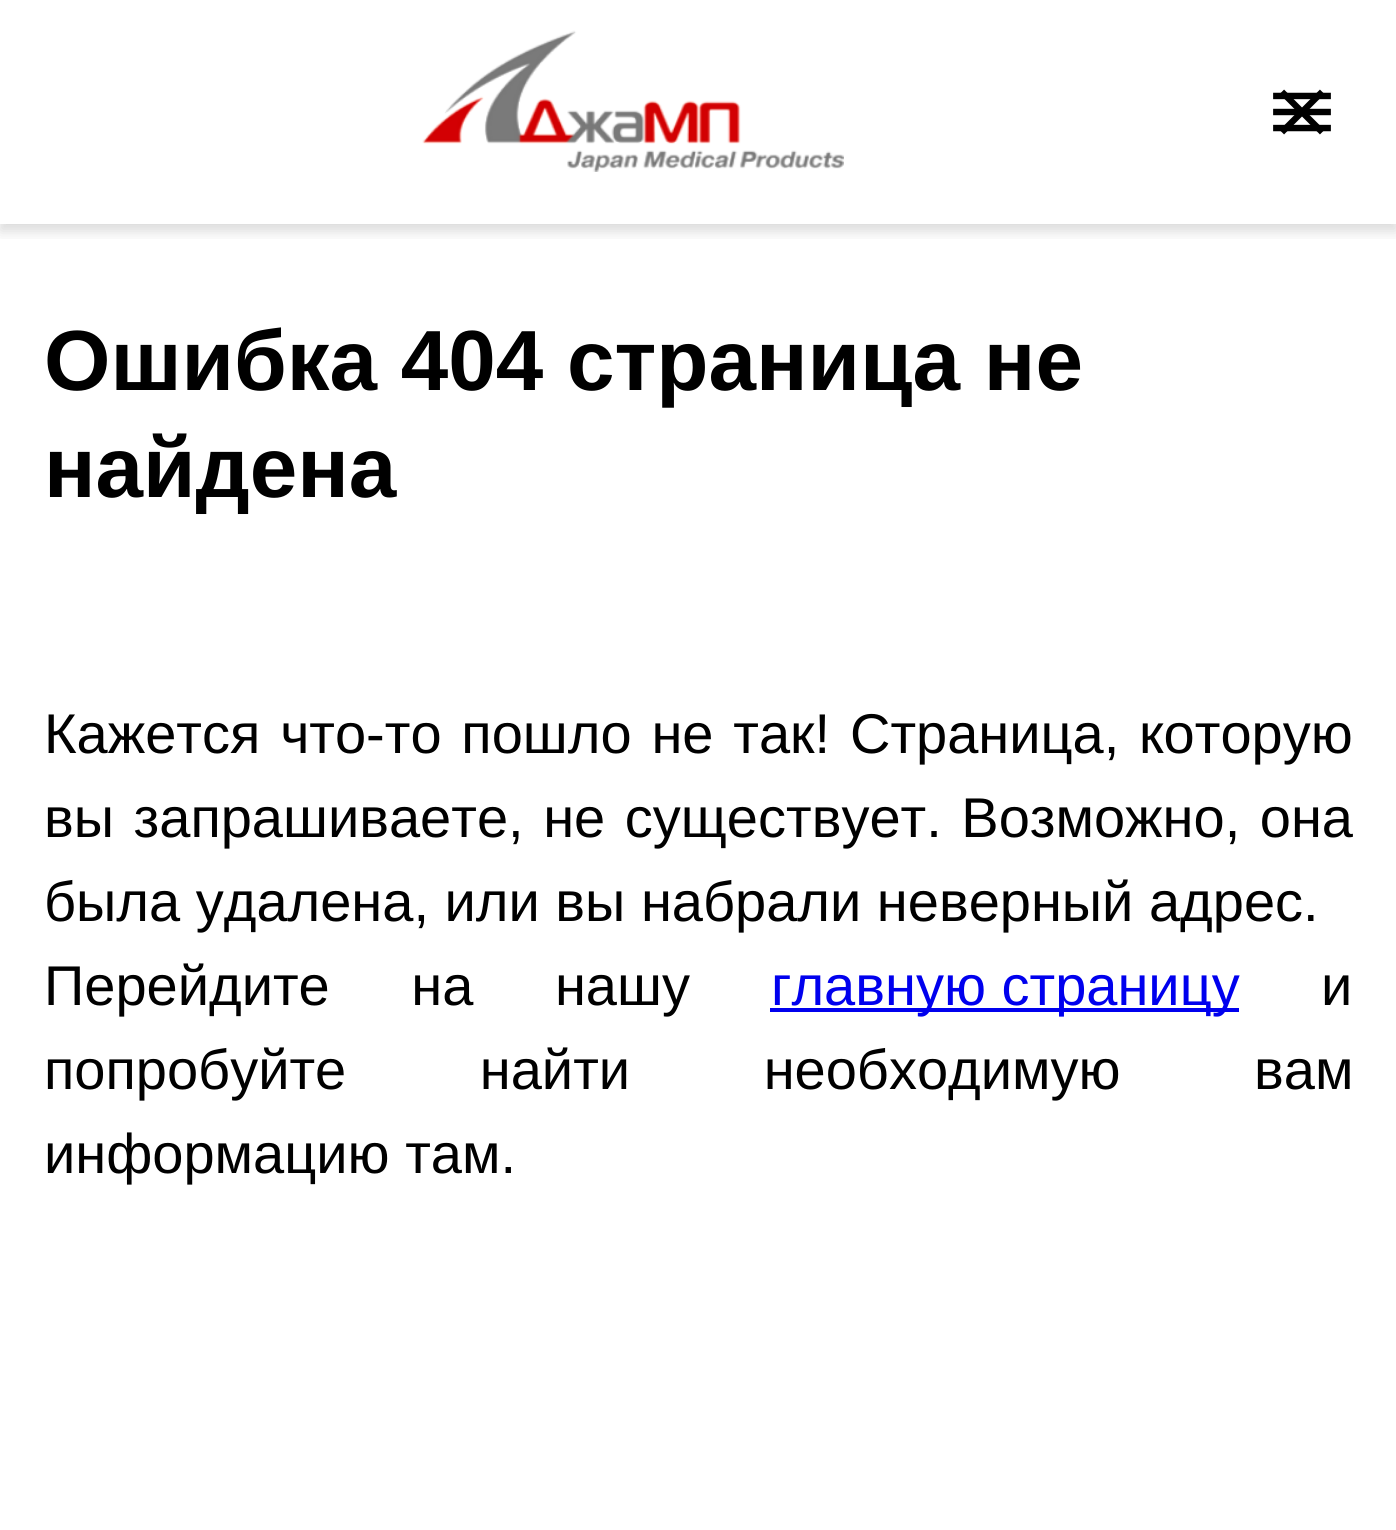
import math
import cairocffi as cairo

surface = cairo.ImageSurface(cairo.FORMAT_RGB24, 1396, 1530)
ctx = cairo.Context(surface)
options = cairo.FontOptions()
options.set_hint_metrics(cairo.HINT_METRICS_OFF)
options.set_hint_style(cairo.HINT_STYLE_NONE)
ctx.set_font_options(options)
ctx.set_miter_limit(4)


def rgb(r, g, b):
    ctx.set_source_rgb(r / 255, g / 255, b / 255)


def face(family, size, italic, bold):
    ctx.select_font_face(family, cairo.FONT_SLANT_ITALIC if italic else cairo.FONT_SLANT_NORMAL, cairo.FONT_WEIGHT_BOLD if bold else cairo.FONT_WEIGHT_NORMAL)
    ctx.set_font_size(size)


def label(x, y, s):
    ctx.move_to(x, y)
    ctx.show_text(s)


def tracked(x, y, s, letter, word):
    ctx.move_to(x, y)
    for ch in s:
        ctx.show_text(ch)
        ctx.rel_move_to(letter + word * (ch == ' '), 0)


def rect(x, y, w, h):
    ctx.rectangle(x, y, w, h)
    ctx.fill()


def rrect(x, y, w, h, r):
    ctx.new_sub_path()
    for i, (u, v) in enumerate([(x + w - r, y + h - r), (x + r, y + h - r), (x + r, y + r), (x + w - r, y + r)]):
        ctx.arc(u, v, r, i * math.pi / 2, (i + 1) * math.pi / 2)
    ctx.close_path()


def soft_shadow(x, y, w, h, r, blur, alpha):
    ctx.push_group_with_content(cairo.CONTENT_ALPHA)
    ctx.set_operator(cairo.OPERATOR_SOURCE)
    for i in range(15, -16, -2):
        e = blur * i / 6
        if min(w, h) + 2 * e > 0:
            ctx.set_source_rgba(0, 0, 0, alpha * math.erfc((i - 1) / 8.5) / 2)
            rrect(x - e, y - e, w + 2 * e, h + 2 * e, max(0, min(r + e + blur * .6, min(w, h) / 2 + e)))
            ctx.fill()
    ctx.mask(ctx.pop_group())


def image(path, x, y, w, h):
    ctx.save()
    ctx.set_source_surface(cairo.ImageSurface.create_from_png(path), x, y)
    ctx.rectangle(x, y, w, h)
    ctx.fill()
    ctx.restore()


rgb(255, 255, 255)
ctx.paint()
ctx.save()
ctx.rectangle(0, 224, 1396, 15)
ctx.clip()
rgb(0, 0, 0)
soft_shadow(0, 7, 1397, 224, 0, 7, 0.15)
ctx.restore()
image('image0.png', 422, 30, 422, 142)
image('image1.png', 1273, 89, 58, 46)
face('Liberation Sans', 85.4, 0, 1)
rgb(0, 0, 0)
label(44, 390, 'Ошибка 404 страница не')
label(44, 497, 'найдена')
face('Liberation Sans', 56, 0, 0)
tracked(44, 753, 'Кажется что-то пошло не так! Страница, которую', 0, 4.25)
tracked(44, 837, 'вы запрашиваете, не существует. Возможно, она', 0, 4)
label(44, 921, 'была удалена, или вы набрали неверный адрес.')
tracked(44, 1005, 'Перейдите на нашу', 0, 66)
rgb(0, 0, 238)
rect(770, 1008, 469, 4)
label(771, 1005, 'главную страницу')
rgb(0, 0, 0)
label(1321, 1005, 'и')
tracked(44, 1089, 'попробуйте найти необходимую вам', 0, 118)
label(44, 1173, 'информацию там.')
surface.write_to_png('render.png')
